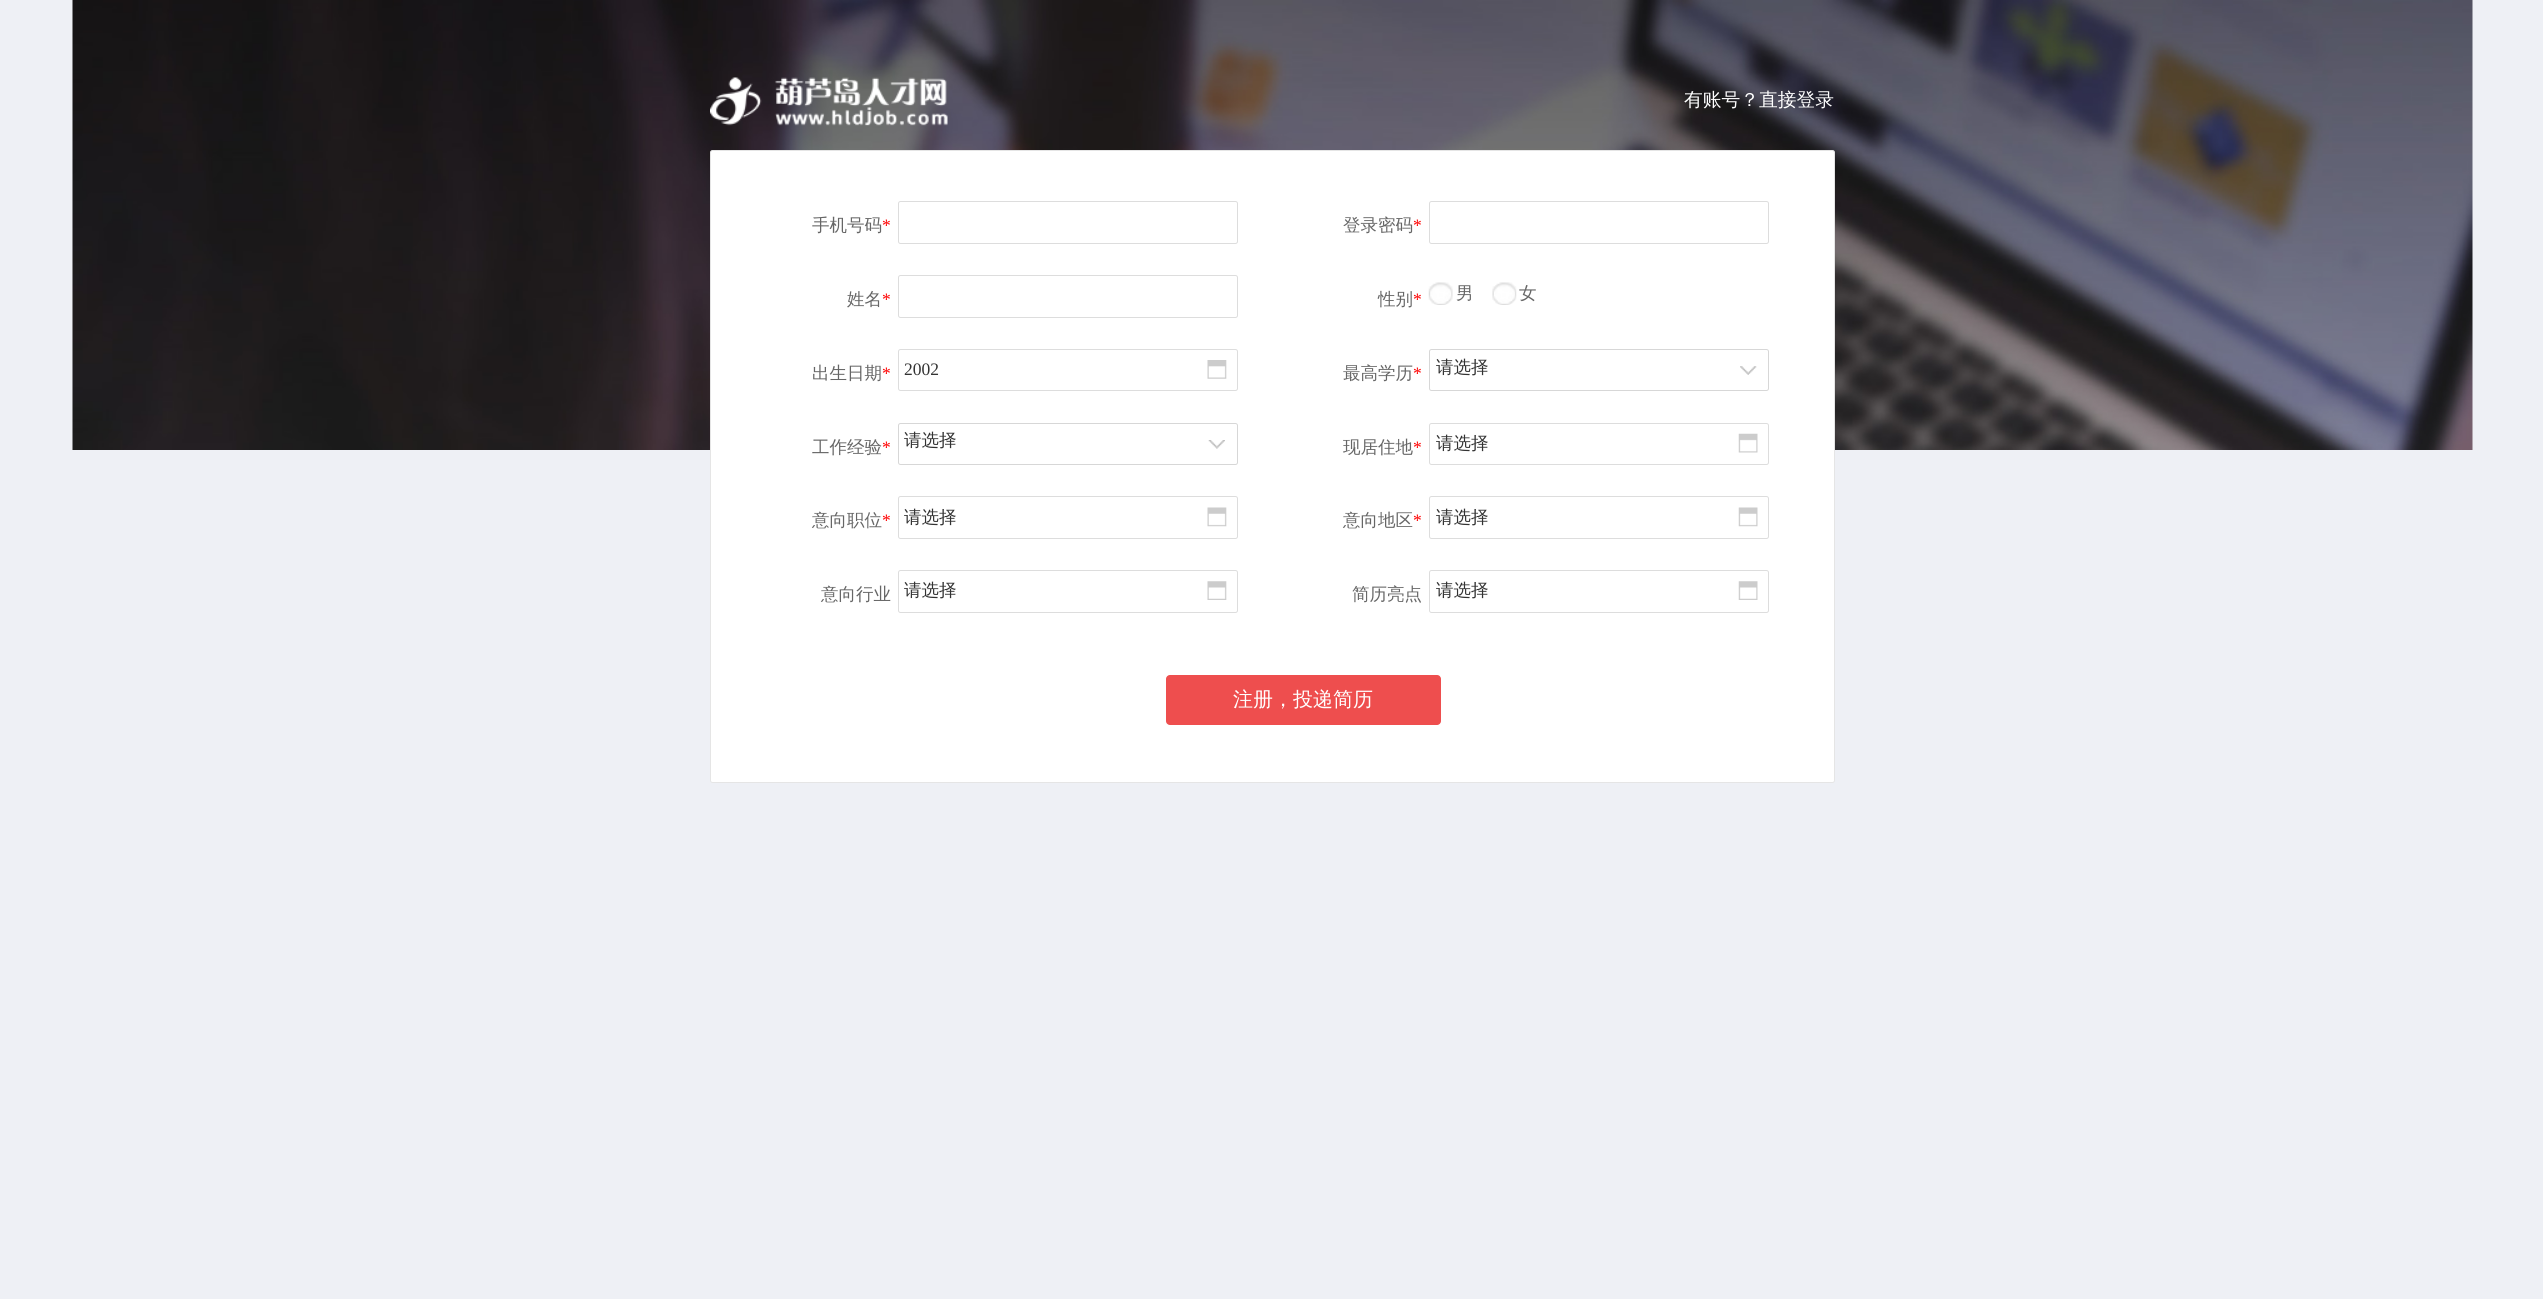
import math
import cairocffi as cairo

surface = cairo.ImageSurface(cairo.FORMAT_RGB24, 2543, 1299)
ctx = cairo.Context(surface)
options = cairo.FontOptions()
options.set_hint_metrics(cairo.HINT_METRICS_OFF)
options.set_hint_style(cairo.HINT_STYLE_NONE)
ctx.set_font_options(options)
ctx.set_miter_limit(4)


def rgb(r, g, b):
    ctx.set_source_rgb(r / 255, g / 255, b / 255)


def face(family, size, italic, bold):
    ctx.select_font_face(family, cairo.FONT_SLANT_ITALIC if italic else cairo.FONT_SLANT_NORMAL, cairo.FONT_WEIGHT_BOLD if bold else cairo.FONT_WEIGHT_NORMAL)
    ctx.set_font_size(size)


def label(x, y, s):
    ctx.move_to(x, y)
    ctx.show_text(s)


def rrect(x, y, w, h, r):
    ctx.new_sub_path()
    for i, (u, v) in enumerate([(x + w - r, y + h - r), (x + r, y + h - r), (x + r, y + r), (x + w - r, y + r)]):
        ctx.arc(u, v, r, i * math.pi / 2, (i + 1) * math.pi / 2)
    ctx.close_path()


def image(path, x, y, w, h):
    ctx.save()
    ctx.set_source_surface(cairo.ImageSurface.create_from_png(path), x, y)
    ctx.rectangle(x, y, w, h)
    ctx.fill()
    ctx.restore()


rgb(238, 240, 245)
ctx.paint()
image('image0.png', 72, 0, 2401, 450)
image('image1.png', 710, 77, 238, 49)
face('WenQuanYi Zen Hei Medium', 18.75, 0, 0)
rgb(255, 255, 255)
label(1684, 106, '有账号？直接登录')
rrect(710.5, 150.5, 1124, 632, 2)
ctx.fill_preserve()
rgb(229, 229, 229)
ctx.set_line_width(1)
ctx.stroke()
face('WenQuanYi Zen Hei Medium', 17.5, 0, 0)
rgb(102, 102, 102)
label(812, 231, '手机号码')
face('Liberation Serif', 17.5, 0, 0)
rgb(255, 0, 0)
label(882, 231, '*')
rrect(898.5, 201.5, 339, 42, 2)
rgb(221, 221, 221)
ctx.stroke()
face('WenQuanYi Zen Hei Medium', 17.5, 0, 0)
rgb(102, 102, 102)
label(1343, 231, '登录密码')
face('Liberation Serif', 17.5, 0, 0)
rgb(255, 0, 0)
label(1413, 231, '*')
rrect(1429.5, 201.5, 339, 42, 2)
rgb(221, 221, 221)
ctx.stroke()
face('WenQuanYi Zen Hei Medium', 17.5, 0, 0)
rgb(102, 102, 102)
label(847, 305, '姓名')
face('Liberation Serif', 17.5, 0, 0)
rgb(255, 0, 0)
label(882, 305, '*')
rrect(898.5, 275.5, 339, 42, 2)
rgb(221, 221, 221)
ctx.stroke()
face('WenQuanYi Zen Hei Medium', 17.5, 0, 0)
rgb(102, 102, 102)
label(1378, 305, '性别')
face('Liberation Serif', 17.5, 0, 0)
rgb(255, 0, 0)
label(1413, 305, '*')
image('image2.png', 1428, 282, 25, 23)
face('WenQuanYi Zen Hei Medium', 17.5, 0, 0)
rgb(102, 102, 102)
label(1456, 299, '男')
image('image3.png', 1492, 282, 25, 23)
label(1519, 299, '女')
label(812, 379, '出生日期')
face('Liberation Serif', 17.5, 0, 0)
rgb(255, 0, 0)
label(882, 379, '*')
image('image4.png', 1207, 360, 20, 19)
rrect(898.5, 349.5, 339, 41, 2)
rgb(221, 221, 221)
ctx.stroke()
rgb(51, 51, 51)
label(904, 375, '2002')
face('WenQuanYi Zen Hei Medium', 17.5, 0, 0)
rgb(102, 102, 102)
label(1343, 379, '最高学历')
face('Liberation Serif', 17.5, 0, 0)
rgb(255, 0, 0)
label(1413, 379, '*')
rrect(1429.5, 349.5, 339, 41, 2)
rgb(215, 215, 215)
ctx.stroke()
face('WenQuanYi Zen Hei Medium', 17.5, 0, 0)
rgb(51, 51, 51)
label(1436, 373, '请选择')
image('image5.png', 1740, 366, 17, 9)
rgb(102, 102, 102)
label(812, 453, '工作经验')
face('Liberation Serif', 17.5, 0, 0)
rgb(255, 0, 0)
label(882, 453, '*')
rrect(898.5, 423.5, 339, 41, 2)
rgb(215, 215, 215)
ctx.stroke()
face('WenQuanYi Zen Hei Medium', 17.5, 0, 0)
rgb(51, 51, 51)
label(904, 446, '请选择')
image('image6.png', 1208, 440, 17, 9)
rgb(102, 102, 102)
label(1343, 453, '现居住地')
face('Liberation Serif', 17.5, 0, 0)
rgb(255, 0, 0)
label(1413, 453, '*')
image('image7.png', 1738, 433, 20, 20)
rrect(1429.5, 423.5, 339, 41, 2)
rgb(221, 221, 221)
ctx.stroke()
face('WenQuanYi Zen Hei Medium', 17.5, 0, 0)
rgb(51, 51, 51)
label(1436, 449, '请选择')
rgb(102, 102, 102)
label(812, 526, '意向职位')
face('Liberation Serif', 17.5, 0, 0)
rgb(255, 0, 0)
label(882, 526, '*')
image('image8.png', 1207, 507, 20, 20)
rrect(898.5, 496.5, 339, 42, 2)
rgb(221, 221, 221)
ctx.stroke()
face('WenQuanYi Zen Hei Medium', 17.5, 0, 0)
rgb(51, 51, 51)
label(904, 523, '请选择')
rgb(102, 102, 102)
label(1343, 526, '意向地区')
face('Liberation Serif', 17.5, 0, 0)
rgb(255, 0, 0)
label(1413, 526, '*')
image('image9.png', 1738, 507, 20, 20)
rrect(1429.5, 496.5, 339, 42, 2)
rgb(221, 221, 221)
ctx.stroke()
face('WenQuanYi Zen Hei Medium', 17.5, 0, 0)
rgb(51, 51, 51)
label(1436, 523, '请选择')
rgb(102, 102, 102)
label(821, 600, '意向行业')
image('image10.png', 1207, 581, 20, 19)
rrect(898.5, 570.5, 339, 42, 2)
rgb(221, 221, 221)
ctx.stroke()
rgb(51, 51, 51)
label(904, 596, '请选择')
rgb(102, 102, 102)
label(1352, 600, '简历亮点')
image('image11.png', 1738, 581, 20, 19)
rrect(1429.5, 570.5, 339, 42, 2)
rgb(221, 221, 221)
ctx.stroke()
rgb(51, 51, 51)
label(1436, 596, '请选择')
rgb(238, 78, 78)
rrect(1166, 675, 275, 50, 4)
ctx.fill()
face('WenQuanYi Zen Hei Medium', 20, 0, 0)
rgb(255, 255, 255)
label(1233, 706, '注册，投递简历')
surface.write_to_png('render.png')
